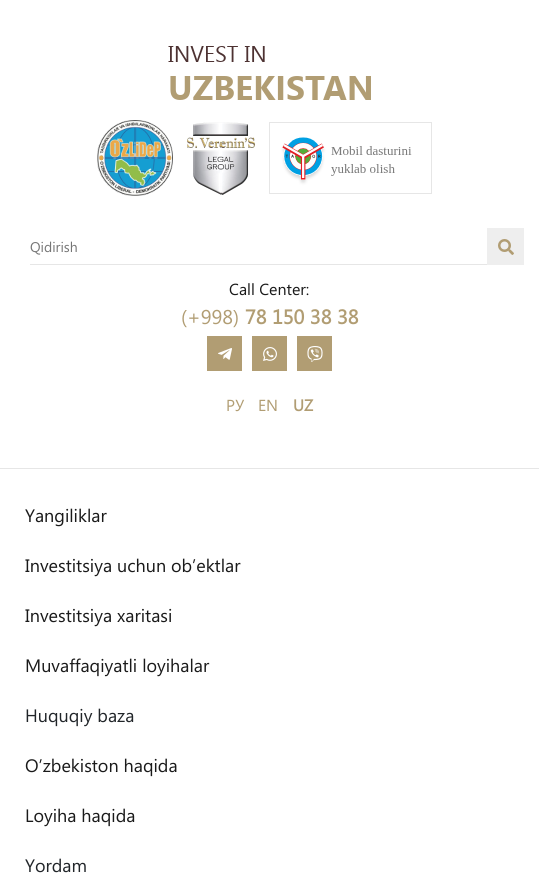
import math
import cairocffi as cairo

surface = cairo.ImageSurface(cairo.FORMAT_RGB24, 539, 874)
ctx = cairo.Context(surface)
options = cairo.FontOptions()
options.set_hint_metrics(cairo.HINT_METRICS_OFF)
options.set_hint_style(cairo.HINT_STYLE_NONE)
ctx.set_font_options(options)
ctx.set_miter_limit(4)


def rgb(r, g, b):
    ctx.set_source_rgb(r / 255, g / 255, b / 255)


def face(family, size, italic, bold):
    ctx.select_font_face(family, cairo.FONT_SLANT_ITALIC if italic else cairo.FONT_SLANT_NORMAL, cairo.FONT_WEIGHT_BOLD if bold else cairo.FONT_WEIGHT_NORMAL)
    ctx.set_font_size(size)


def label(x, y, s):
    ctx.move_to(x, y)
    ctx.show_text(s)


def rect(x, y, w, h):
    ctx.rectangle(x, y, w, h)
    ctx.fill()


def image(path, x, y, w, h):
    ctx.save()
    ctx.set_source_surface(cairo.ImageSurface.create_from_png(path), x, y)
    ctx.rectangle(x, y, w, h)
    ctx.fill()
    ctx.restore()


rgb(255, 255, 255)
ctx.paint()
rgb(230, 230, 230)
rect(0, 468, 539, 1)
image('image0.png', 168, 46, 203, 54)
image('image1.png', 97, 120, 76, 76)
image('image2.png', 187, 122, 68, 73)
image('image3.png', 269, 122, 163, 72)
rect(30, 264, 457, 1)
face('Segoe UI', 14, 0, 0)
rgb(117, 117, 117)
label(30, 252, 'Qidirish')
rgb(238, 238, 238)
rect(487, 228, 37, 37)
image('image4.png', 498, 239, 16, 16)
face('Segoe UI', 16, 0, 0)
rgb(26, 26, 26)
label(229, 295, 'Call Center:')
face('Segoe UI', 20, 0, 0)
rgb(177, 157, 115)
label(181, 324, '(+998)')
face('Segoe UI', 20, 0, 1)
label(245, 324, '78 150 38 38')
rect(207, 336, 35, 35)
image('image5.png', 218, 348, 14, 12)
rect(252, 336, 35, 35)
image('image6.png', 263, 347, 14, 14)
rect(297, 336, 35, 35)
image('image7.png', 307, 346, 16, 16)
face('Segoe UI', 16, 0, 0)
label(226, 411, 'РУ')
label(258, 411, 'EN')
face('Segoe UI', 16, 0, 1)
label(293, 411, 'UZ')
face('Segoe UI', 18, 0, 0)
rgb(26, 26, 26)
label(25, 522, 'Yangiliklar')
label(25, 572, 'Investitsiya uchun ob’ektlar')
label(25, 622, 'Investitsiya xaritasi')
label(25, 672, 'Muvaffaqiyatli loyihalar')
rgb(33, 37, 41)
label(25, 722, 'Huquqiy baza')
rgb(26, 26, 26)
label(25, 772, 'O’zbekiston haqida')
label(25, 822, 'Loyiha haqida')
rgb(33, 37, 41)
label(25, 872, 'Yordam')
surface.write_to_png('render.png')
